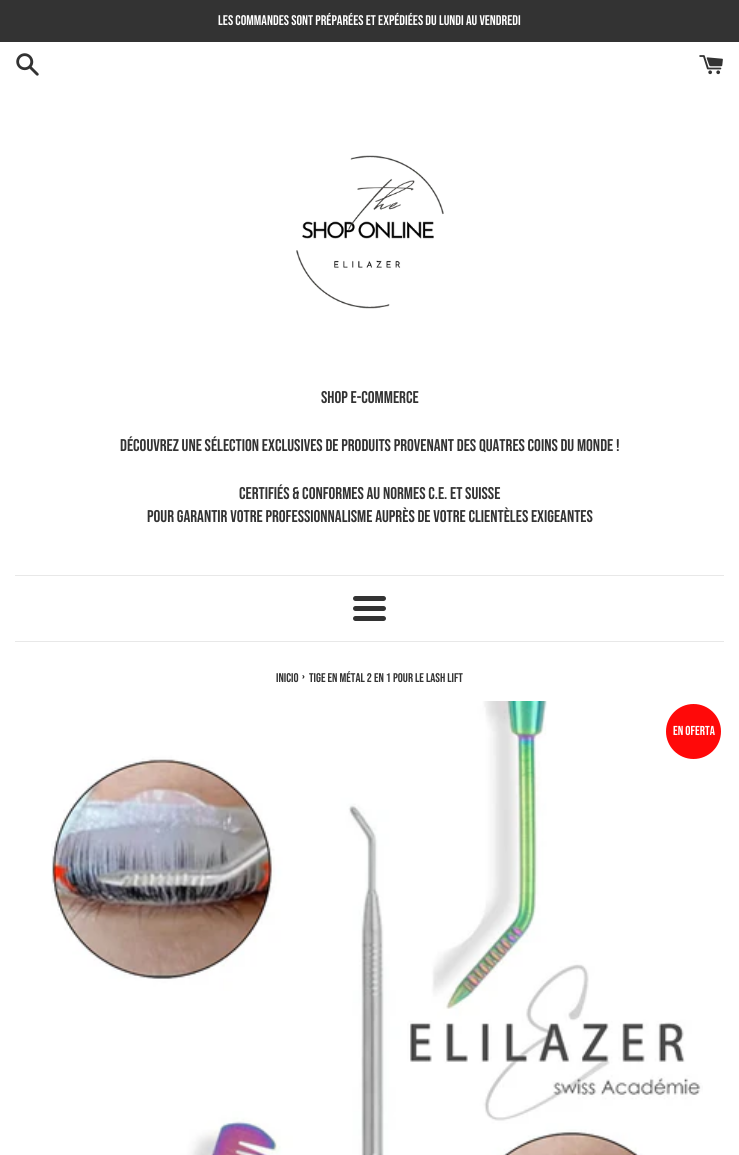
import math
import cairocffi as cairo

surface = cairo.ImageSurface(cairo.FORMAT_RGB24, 739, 1155)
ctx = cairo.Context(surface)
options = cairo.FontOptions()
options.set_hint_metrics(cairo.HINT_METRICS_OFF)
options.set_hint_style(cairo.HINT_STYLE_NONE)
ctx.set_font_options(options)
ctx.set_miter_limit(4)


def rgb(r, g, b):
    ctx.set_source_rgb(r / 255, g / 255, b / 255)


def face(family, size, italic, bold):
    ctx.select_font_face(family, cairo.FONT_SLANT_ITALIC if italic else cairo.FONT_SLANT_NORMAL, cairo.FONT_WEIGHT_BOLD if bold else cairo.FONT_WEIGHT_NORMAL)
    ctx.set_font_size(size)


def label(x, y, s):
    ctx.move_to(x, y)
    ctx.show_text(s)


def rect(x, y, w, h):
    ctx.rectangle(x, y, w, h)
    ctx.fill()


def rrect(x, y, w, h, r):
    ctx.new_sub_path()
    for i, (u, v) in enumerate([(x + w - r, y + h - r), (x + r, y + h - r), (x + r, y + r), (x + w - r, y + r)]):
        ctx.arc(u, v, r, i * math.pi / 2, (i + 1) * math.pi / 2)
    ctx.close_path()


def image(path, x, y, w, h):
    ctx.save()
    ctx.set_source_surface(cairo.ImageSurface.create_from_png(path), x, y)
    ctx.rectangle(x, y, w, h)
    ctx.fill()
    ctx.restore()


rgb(255, 255, 255)
ctx.paint()
rgb(51, 51, 51)
rect(0, 0, 739, 42)
face('Bebas Neue', 14, 0, 0)
rgb(255, 255, 255)
label(218, 25, 'Les commandes sont préparées et expédiées du lundi au vendredi')
image('image0.png', 16, 53, 23, 23)
image('image1.png', 699, 55, 24, 20)
image('image2.png', 296, 155, 148, 154)
face('Bebas Neue', 17, 0, 0)
rgb(51, 51, 51)
label(321, 403, 'SHOP E-COMMERCE')
label(120, 451, 'DÉCOUVREZ UNE SÉLECTION EXCLUSIVES DE PRODUITS PROVENANT DES QUATRES COINS DU MONDE !')
label(239, 499, 'CERTIFIÉS & CONFORMES AU NORMES C.E. ET SUISSE')
label(147, 522, 'POUR GARANTIR VOTRE PROFESSIONNALISME AUPRÈS DE VOTRE CLIENTÈLES EXIGEANTES')
rgb(232, 232, 232)
rect(15, 575, 709, 1)
rgb(51, 51, 51)
rrect(353, 596, 33, 5, 2.5)
ctx.fill()
rrect(353, 606, 33, 5, 2.5)
ctx.fill()
rrect(353, 616, 33, 5, 2.5)
ctx.fill()
rgb(232, 232, 232)
rect(15, 641, 709, 1)
face('Bebas Neue', 12.6, 0, 0)
rgb(51, 51, 51)
label(276, 682, 'Inicio')
face('Bebas Neue', 15, 0, 0)
label(302, 682, '›')
face('Bebas Neue', 12.6, 0, 0)
label(309, 682, 'TIGE EN MÉTAL 2 EN 1 POUR LE LASH LIFT')
image('image3.png', 51, 701, 652, 454)
rgb(255, 9, 9)
ctx.arc(693.5, 731.5, 27.5, 0, 2 * math.pi)
ctx.fill()
face('Bebas Neue', 13, 0, 0)
rgb(255, 255, 255)
label(673, 735, 'En oferta')
surface.write_to_png('render.png')
